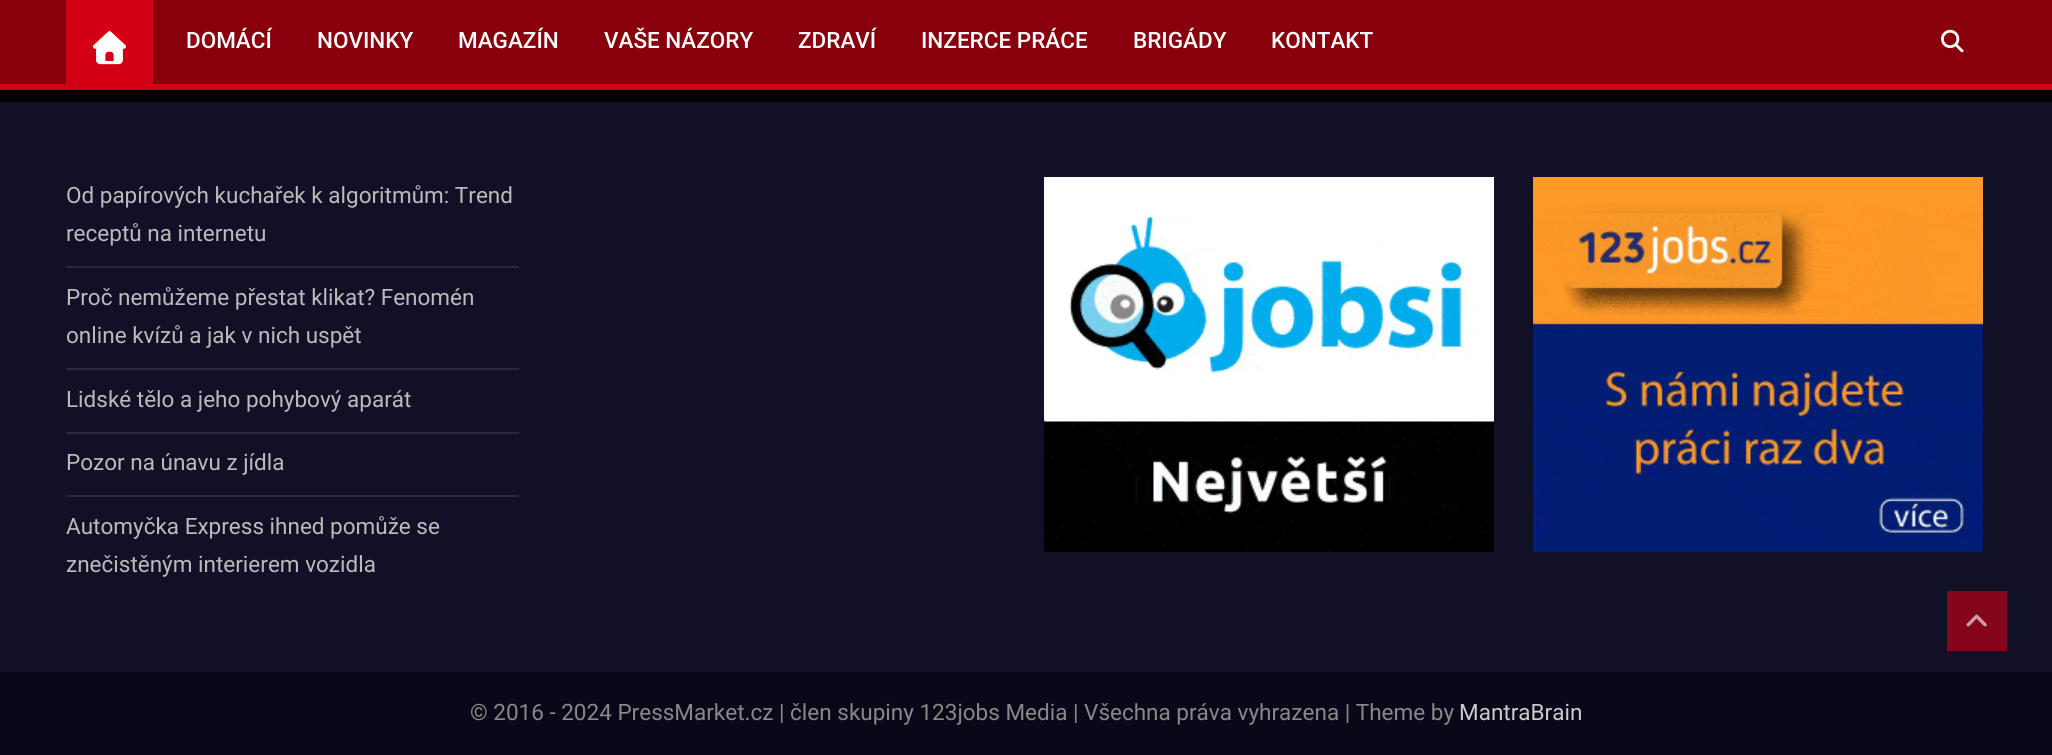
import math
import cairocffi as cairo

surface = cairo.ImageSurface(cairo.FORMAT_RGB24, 2052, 755)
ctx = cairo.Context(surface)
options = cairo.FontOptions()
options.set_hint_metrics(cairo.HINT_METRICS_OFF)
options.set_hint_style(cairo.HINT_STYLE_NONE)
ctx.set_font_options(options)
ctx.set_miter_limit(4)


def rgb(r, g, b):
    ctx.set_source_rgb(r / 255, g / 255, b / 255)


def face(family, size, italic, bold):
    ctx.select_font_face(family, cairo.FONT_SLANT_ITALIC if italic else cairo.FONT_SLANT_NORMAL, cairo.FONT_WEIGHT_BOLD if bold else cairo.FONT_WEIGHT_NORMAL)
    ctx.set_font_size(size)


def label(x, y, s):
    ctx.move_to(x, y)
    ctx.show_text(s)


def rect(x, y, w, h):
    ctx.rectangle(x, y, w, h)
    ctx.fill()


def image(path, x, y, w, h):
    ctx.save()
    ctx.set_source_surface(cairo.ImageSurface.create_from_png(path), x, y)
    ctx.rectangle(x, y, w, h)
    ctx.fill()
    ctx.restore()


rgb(0, 0, 0)
ctx.paint()
rgb(137, 0, 13)
rect(0, 0, 2052, 84)
rgb(209, 0, 20)
rect(0, 84, 2052, 6)
rect(66, 0, 87, 84)
image('image0.png', 93, 31, 33, 34)
face('Roboto Medium', 22.5, 0, 0)
rgb(255, 255, 255)
label(186, 48, 'DOMÁCÍ')
label(317, 48, 'NOVINKY')
label(458, 48, 'MAGAZÍN')
label(604, 48, 'VAŠE NÁZORY')
label(798, 48, 'ZDRAVÍ')
label(921, 48, 'INZERCE PRÁCE')
label(1133, 48, 'BRIGÁDY')
label(1271, 48, 'KONTAKT')
image('image1.png', 1941, 29, 23, 24)
rgb(18, 16, 38)
rect(0, 102, 2052, 570)
rgb(42, 40, 60)
rect(66, 266, 453, 2)
face('Roboto', 22.5, 0, 0)
rgb(187, 187, 187)
label(66, 203, 'Od papírových kuchařek k algoritmům: Trend')
label(66, 241, 'receptů na internetu')
rgb(42, 40, 60)
rect(66, 368, 453, 2)
rgb(187, 187, 187)
label(66, 305, 'Proč nemůžeme přestat klikat? Fenomén')
label(66, 343, 'online kvízů a jak v nich uspět')
rgb(42, 40, 60)
rect(66, 432, 453, 2)
rgb(187, 187, 187)
label(66, 407, 'Lidské tělo a jeho pohybový aparát')
rgb(42, 40, 60)
rect(66, 495, 453, 2)
rgb(187, 187, 187)
label(66, 470, 'Pozor na únavu z jídla')
label(66, 534, 'Automyčka Express ihned pomůže se')
label(66, 572, 'znečistěným interierem vozidla')
image('image2.png', 1044, 177, 450, 375)
image('image3.png', 1533, 177, 450, 375)
rgb(9, 8, 24)
rect(0, 672, 2052, 83)
rgb(136, 136, 136)
label(470, 720, '© 2016 - 2024 PressMarket.cz | člen skupiny 123jobs Media | Všechna práva vyhrazena | Theme by')
rgb(204, 204, 204)
label(1459, 720, 'MantraBrain')
rgb(133, 6, 27)
rect(1947, 591, 60, 60)
image('image4.png', 1966, 614, 21, 13)
surface.write_to_png('render.png')
